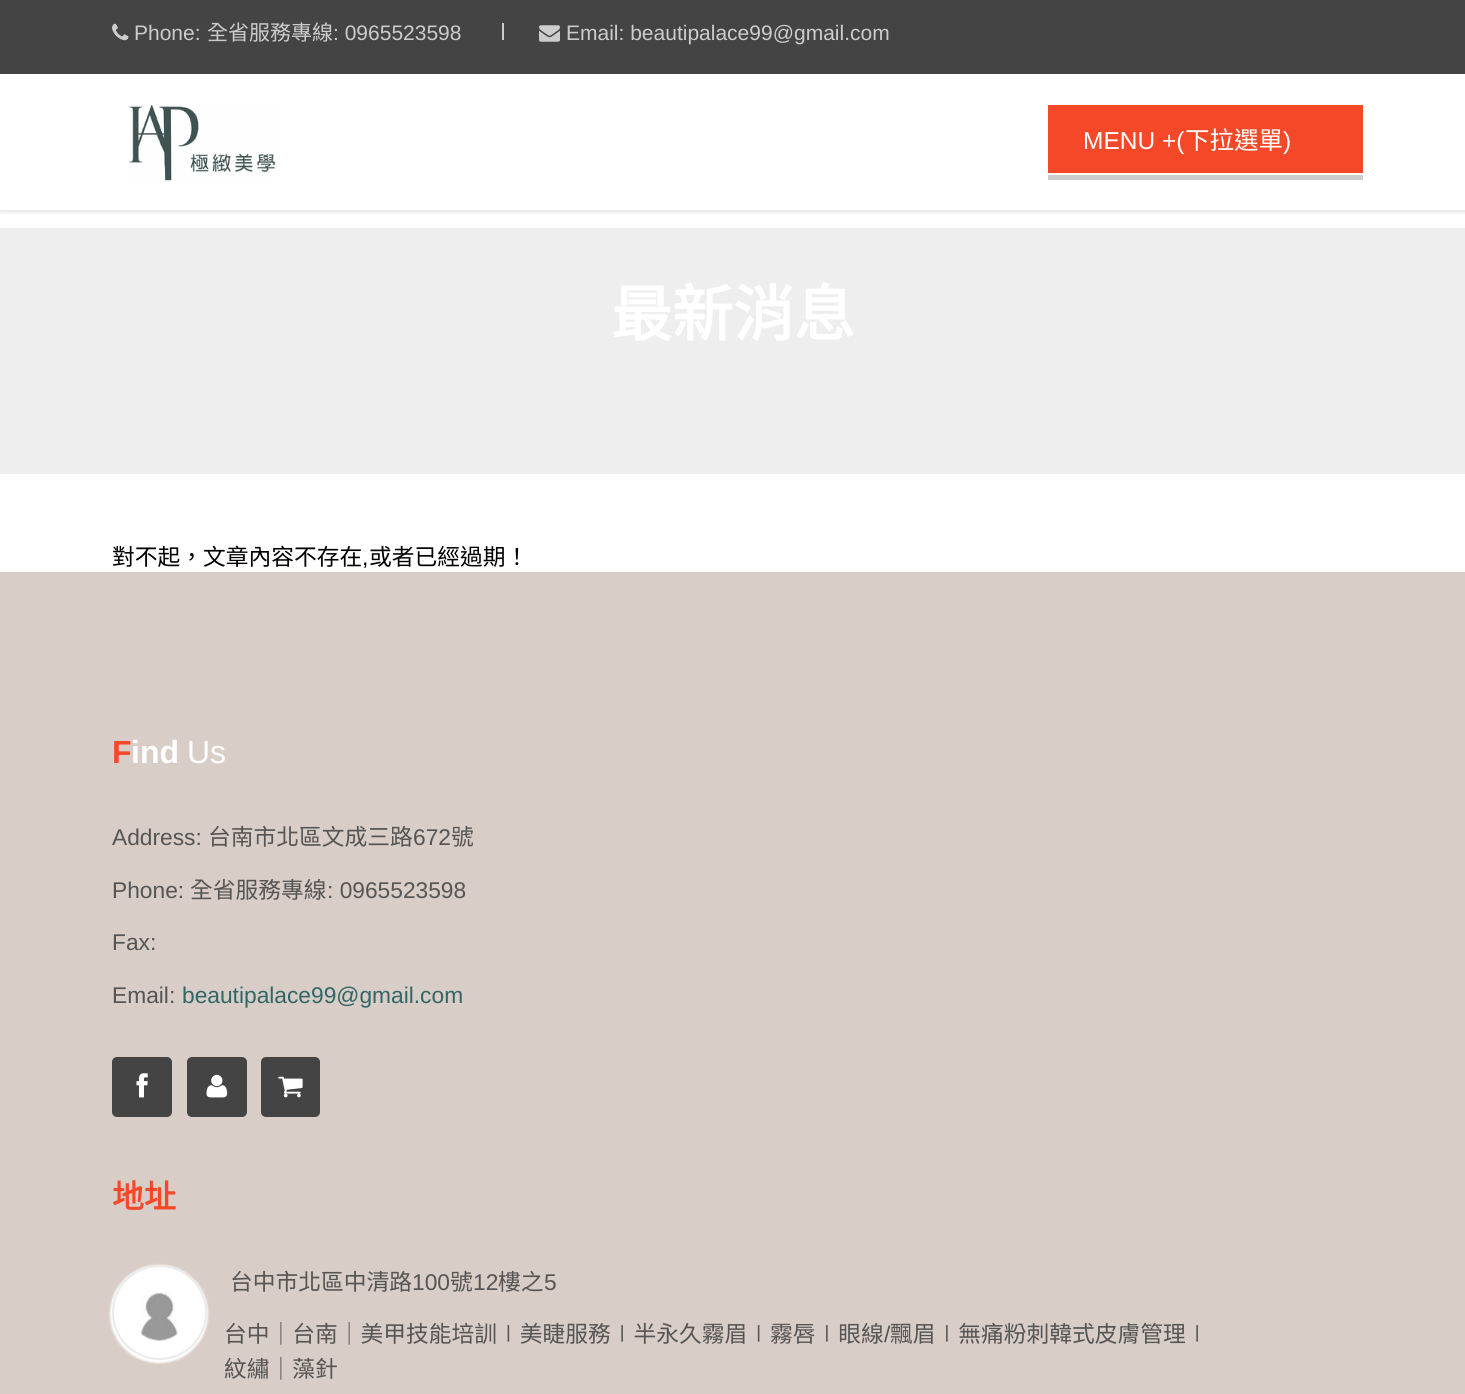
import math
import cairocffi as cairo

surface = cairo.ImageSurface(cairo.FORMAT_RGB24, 1465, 1394)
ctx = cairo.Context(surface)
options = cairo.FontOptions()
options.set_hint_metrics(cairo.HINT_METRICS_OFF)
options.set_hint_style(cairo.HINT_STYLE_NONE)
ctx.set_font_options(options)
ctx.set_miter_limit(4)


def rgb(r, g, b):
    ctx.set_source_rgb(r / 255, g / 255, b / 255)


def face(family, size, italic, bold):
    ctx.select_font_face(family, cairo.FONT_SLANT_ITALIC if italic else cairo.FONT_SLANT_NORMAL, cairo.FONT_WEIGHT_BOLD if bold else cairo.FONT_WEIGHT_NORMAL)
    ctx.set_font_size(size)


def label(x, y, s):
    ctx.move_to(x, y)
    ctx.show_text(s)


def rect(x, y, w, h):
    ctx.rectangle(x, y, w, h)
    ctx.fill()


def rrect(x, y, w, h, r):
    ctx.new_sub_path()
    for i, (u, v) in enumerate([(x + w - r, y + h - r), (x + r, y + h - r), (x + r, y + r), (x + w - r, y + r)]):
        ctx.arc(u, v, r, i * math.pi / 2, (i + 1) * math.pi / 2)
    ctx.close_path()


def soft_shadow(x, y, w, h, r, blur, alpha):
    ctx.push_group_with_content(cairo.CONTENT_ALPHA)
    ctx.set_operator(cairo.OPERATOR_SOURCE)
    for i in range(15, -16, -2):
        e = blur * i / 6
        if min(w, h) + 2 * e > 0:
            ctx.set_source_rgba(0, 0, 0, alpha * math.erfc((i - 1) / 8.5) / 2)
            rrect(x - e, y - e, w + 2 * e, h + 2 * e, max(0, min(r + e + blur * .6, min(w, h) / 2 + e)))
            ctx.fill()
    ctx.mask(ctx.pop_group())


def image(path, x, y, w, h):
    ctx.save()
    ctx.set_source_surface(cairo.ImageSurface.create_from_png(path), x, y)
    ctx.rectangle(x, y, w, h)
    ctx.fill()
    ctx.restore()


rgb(255, 255, 255)
ctx.paint()
rgb(68, 68, 68)
rect(0, 0, 1465, 74)
image('image0.png', 112, 23, 17, 18)
face('Liberation Sans', 21, 0, 0)
rgb(204, 204, 204)
label(134, 40, 'Phone:')
face('Noto Sans CJK TC', 21, 0, 0)
label(207, 40, '全省服務專線')
face('Liberation Sans', 21, 0, 0)
label(333, 40, ': 0965523598')
rect(502, 23, 2, 17)
image('image1.png', 539, 25, 21, 17)
label(566, 40, 'Email: beautipalace99@gmail.com')
ctx.save()
ctx.rectangle(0, 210, 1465, 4)
ctx.clip()
rgb(0, 0, 0)
soft_shadow(0, 72, 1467, 140, 0, 2.5, 0.12)
ctx.restore()
image('image2.png', 129, 105, 146, 76)
ctx.new_path()
ctx.move_to(1048, 110)
ctx.line_to(1048, 180)
ctx.line_to(1363, 180)
ctx.line_to(1363, 175)
ctx.line_to(1048, 175)
ctx.close_path()
ctx.fill()
rgb(245, 72, 40)
rect(1048, 105, 315, 68)
face('Liberation Sans', 24.5, 0, 0)
rgb(255, 255, 255)
label(1083, 149, 'MENU +(')
face('Noto Sans CJK TC', 24.5, 0, 0)
label(1185, 149, '下拉選單')
face('Liberation Sans', 24.5, 0, 0)
label(1283, 149, ')')
rgb(238, 238, 238)
rect(0, 228, 1465, 246)
face('Noto Sans CJK TC', 61, 0, 1)
rgb(255, 255, 255)
label(611, 336, '最新消息')
face('Noto Sans CJK TC', 22.75, 0, 0)
rgb(0, 0, 0)
label(112, 565, '對不起，文章內容不存在')
face('Liberation Sans', 22.75, 0, 0)
label(362, 565, ',')
face('Noto Sans CJK TC', 22.75, 0, 0)
label(369, 565, '或者已經過期！')
rgb(216, 205, 199)
rect(0, 572, 1465, 822)
face('Liberation Sans', 32, 0, 1)
rgb(245, 72, 40)
label(112, 763, 'F')
rgb(255, 255, 255)
label(131, 763, 'ind')
face('Liberation Sans', 32, 0, 0)
label(187, 763, 'Us')
face('Liberation Sans', 22.75, 0, 0)
rgb(85, 85, 85)
label(112, 845, 'Address:')
face('Noto Sans CJK TC', 22.75, 0, 0)
label(208, 845, '台南市北區文成三路')
face('Liberation Sans', 22.75, 0, 0)
label(413, 845, '672')
face('Noto Sans CJK TC', 22.75, 0, 0)
label(451, 845, '號')
face('Liberation Sans', 22.75, 0, 0)
label(112, 898, 'Phone:')
face('Noto Sans CJK TC', 22.75, 0, 0)
label(190, 898, '全省服務專線')
face('Liberation Sans', 22.75, 0, 0)
label(327, 898, ': 0965523598')
label(112, 950, 'Fax:')
label(112, 1003, 'Email:')
rgb(51, 102, 102)
label(182, 1003, 'beautipalace99@gmail.com')
rgb(68, 68, 68)
rrect(112, 1057, 60, 60, 5)
ctx.fill()
image('image3.png', 136, 1073, 12, 25)
rrect(187, 1057, 60, 60, 5)
ctx.fill()
image('image4.png', 206, 1074, 22, 24)
rrect(261, 1057, 59, 60, 5)
ctx.fill()
image('image5.png', 278, 1076, 25, 22)
face('Noto Sans CJK TC', 32, 0, 1)
rgb(245, 72, 40)
label(112, 1208, '地址')
rgb(255, 255, 255)
soft_shadow(110, 1265, 98, 98, 49, 1, 1)
rgb(255, 255, 255)
ctx.arc(159.5, 1312.5, 46.5, 0, 2 * math.pi)
ctx.fill_preserve()
rgb(235, 235, 235)
ctx.stroke()
image('image6.png', 140, 1291, 38, 50)
face('Noto Sans CJK TC', 22.75, 0, 0)
rgb(85, 85, 85)
label(230, 1290, '台中市北區中清路')
face('Liberation Sans', 22.75, 0, 0)
label(412, 1290, '100')
face('Noto Sans CJK TC', 22.75, 0, 0)
label(450, 1290, '號')
face('Liberation Sans', 22.75, 0, 0)
label(473, 1290, '12')
face('Noto Sans CJK TC', 22.75, 0, 0)
label(498, 1290, '樓之')
face('Liberation Sans', 22.75, 0, 0)
label(544, 1290, '5')
face('Noto Sans CJK TC', 22.75, 0, 0)
label(224, 1342, '台中｜台南｜美甲技能培訓∣美睫服務∣半永久霧眉∣霧唇∣眼線')
face('Liberation Sans', 22.75, 0, 0)
label(884, 1342, '/')
face('Noto Sans CJK TC', 22.75, 0, 0)
label(890, 1342, '飄眉∣無痛粉刺韓式皮膚管理∣')
label(224, 1377, '紋繡｜藻針')
surface.write_to_png('render.png')
